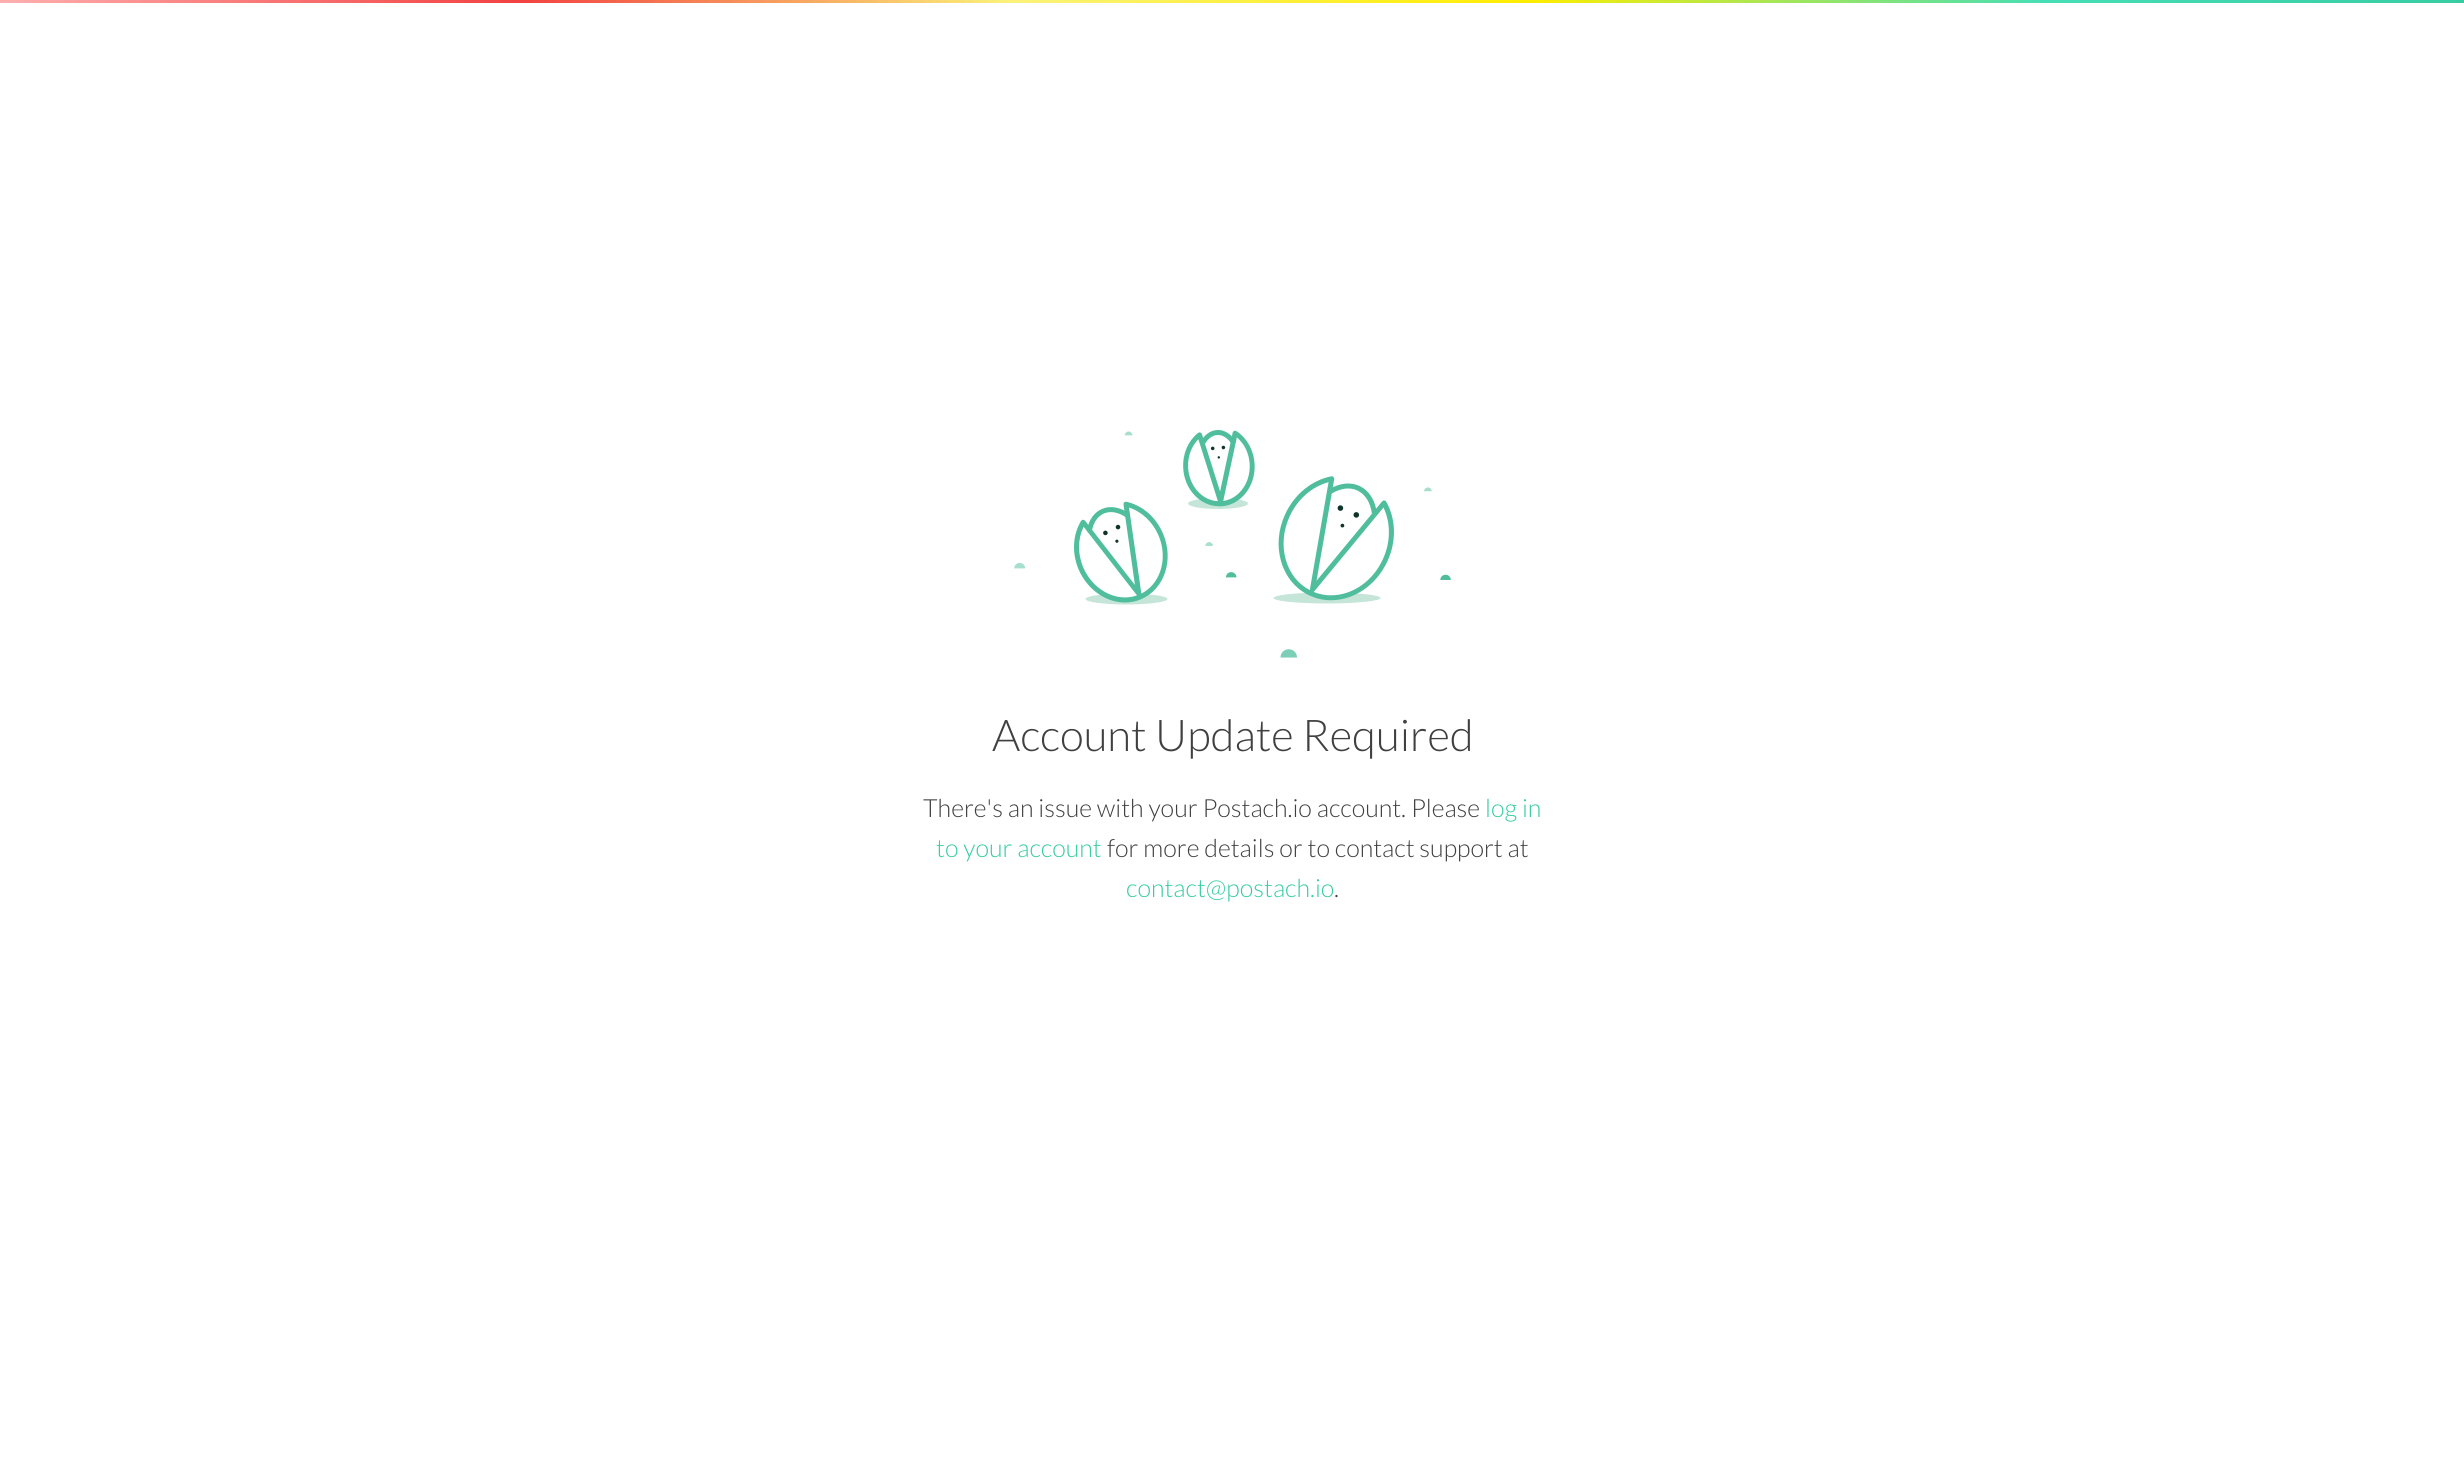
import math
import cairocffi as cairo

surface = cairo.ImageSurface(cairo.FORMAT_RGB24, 2464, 1483)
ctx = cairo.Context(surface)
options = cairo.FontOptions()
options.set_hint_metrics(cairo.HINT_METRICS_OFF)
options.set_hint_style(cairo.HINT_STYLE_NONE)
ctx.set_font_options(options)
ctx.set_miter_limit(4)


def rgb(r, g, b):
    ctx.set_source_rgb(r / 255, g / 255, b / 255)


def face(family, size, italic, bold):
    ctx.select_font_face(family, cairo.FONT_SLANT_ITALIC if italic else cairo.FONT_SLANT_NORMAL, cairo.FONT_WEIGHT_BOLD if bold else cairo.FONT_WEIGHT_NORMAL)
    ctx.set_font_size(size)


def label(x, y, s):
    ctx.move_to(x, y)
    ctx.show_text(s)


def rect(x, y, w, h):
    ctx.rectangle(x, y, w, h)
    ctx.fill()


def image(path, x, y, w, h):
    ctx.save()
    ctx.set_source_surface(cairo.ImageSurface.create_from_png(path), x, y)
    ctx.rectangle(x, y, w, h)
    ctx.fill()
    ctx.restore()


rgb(255, 255, 255)
ctx.paint()
gradient = cairo.LinearGradient(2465, 1.3, 0, 1.2)
gradient.add_color_stop_rgba(0, 0.216, 0.8, 0.635, 1)
gradient.add_color_stop_rgba(0.17, 0.275, 0.871, 0.714, 1)
gradient.add_color_stop_rgba(0.38, 0.996, 0.929, 0, 1)
gradient.add_color_stop_rgba(0.59, 0.984, 0.949, 0.478, 1)
gradient.add_color_stop_rgba(0.79, 0.949, 0.255, 0.255, 1)
gradient.add_color_stop_rgba(1, 1, 0.686, 0.686, 1)
ctx.set_source(gradient)
rect(0, 0, 2464, 3)
image('image0.png', 1014, 430, 437, 228)
face('Lato Light', 43.75, 0, 0)
rgb(64, 64, 64)
label(992, 751, 'Account Update Required')
face('Lato Light', 25, 0, 0)
label(923, 817, 'There\'s an issue with your Postach.io account. Please')
rgb(55, 204, 162)
label(1485, 817, 'log in')
label(936, 857, 'to your account')
rgb(64, 64, 64)
label(1107, 857, 'for more details or to contact support at')
rgb(55, 204, 162)
label(1126, 897, 'contact@postach.io')
rgb(64, 64, 64)
label(1334, 897, '.')
surface.write_to_png('render.png')
